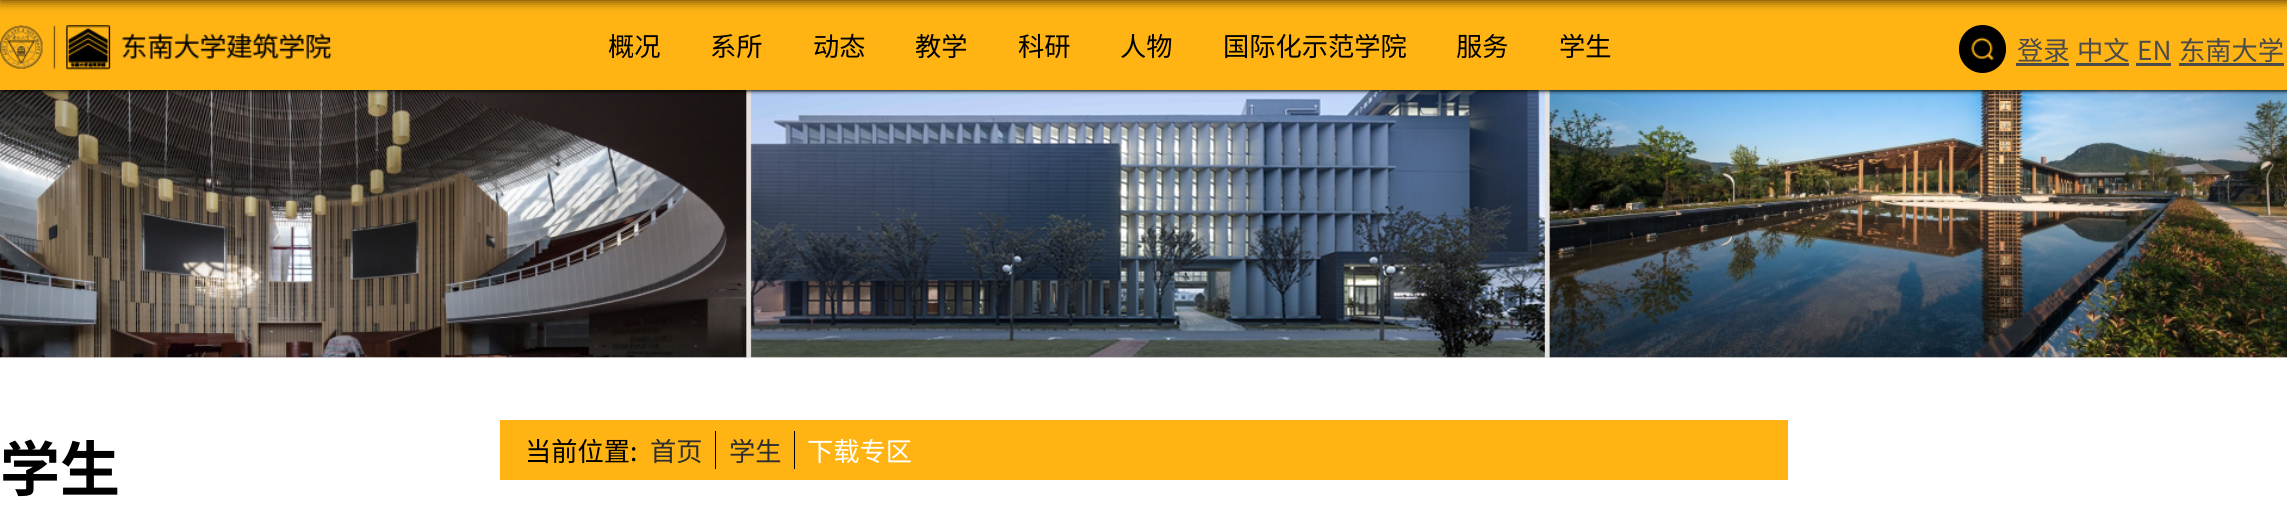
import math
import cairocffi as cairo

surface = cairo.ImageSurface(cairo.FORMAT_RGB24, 2287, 510)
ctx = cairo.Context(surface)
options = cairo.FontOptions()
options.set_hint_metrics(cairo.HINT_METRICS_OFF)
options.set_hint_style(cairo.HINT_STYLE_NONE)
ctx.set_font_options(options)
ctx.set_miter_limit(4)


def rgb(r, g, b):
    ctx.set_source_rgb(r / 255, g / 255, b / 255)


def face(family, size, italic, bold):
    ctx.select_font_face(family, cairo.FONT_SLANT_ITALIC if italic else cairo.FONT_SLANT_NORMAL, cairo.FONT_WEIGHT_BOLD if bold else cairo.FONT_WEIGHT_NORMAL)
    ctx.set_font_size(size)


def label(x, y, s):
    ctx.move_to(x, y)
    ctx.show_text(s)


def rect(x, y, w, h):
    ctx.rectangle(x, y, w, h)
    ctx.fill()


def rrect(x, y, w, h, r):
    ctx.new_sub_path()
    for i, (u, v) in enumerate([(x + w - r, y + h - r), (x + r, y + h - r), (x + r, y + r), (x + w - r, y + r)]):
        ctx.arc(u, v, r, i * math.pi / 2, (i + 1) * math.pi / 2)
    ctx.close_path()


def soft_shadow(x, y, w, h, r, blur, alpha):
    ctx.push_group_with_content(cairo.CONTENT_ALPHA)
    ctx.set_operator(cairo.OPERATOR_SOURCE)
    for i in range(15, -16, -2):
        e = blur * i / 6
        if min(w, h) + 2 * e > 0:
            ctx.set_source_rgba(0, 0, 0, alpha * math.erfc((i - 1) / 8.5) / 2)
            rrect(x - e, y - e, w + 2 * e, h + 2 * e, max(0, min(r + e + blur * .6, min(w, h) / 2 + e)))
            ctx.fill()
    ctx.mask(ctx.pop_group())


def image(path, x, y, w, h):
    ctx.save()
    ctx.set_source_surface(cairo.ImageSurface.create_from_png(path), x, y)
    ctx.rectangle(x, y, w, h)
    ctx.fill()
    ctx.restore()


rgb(255, 255, 255)
ctx.paint()
rgb(231, 226, 223)
rect(0, 90, 2287, 268)
image('image2.png', 0, 90, 2287, 268)
rgb(0, 0, 0)
soft_shadow(1, 1, 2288, 90, 0, 2, 1)
rgb(255, 180, 20)
rect(0, 0, 2287, 90)
rgb(0, 0, 0)
soft_shadow(0, -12, 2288, 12, 0, 6, 0.8)
image('image0.png', 0, 25, 332, 45)
face('Noto Sans SC', 26.25, 0, 0)
rgb(0, 0, 0)
label(608, 56, '概况')
label(710, 56, '系所')
label(813, 56, '动态')
label(915, 56, '教学')
label(1018, 56, '科研')
label(1120, 56, '人物')
label(1223, 56, '国际化示范学院')
label(1456, 56, '服务')
label(1559, 56, '学生')
rrect(1959, 25, 47, 48, 23.5)
ctx.fill()
image('image1.png', 1971, 37, 23, 23)
rgb(75, 75, 75)
label(2017, 60, '登录')
rect(2016, 63, 53, 3)
label(2077, 60, '中文')
rect(2076, 63, 53, 3)
label(2137, 60, 'EN')
rect(2136, 63, 35, 3)
label(2179, 60, '东南大学')
rect(2179, 63, 105, 3)
face('Noto Sans SC', 60, 0, 1)
rgb(0, 0, 0)
label(0, 491, '学生')
rgb(255, 180, 20)
rect(500, 420, 1288, 60)
face('Noto Sans SC', 26.25, 0, 0)
rgb(0, 0, 0)
label(525, 461, '当前位置:')
rgb(47, 47, 47)
label(650, 461, '首页')
rgb(0, 0, 0)
rect(715, 431, 1, 38)
rgb(47, 47, 47)
label(729, 461, '学生')
rgb(0, 0, 0)
rect(794, 431, 1, 38)
rgb(255, 255, 255)
label(807, 461, '下载专区')
surface.write_to_png('render.png')
